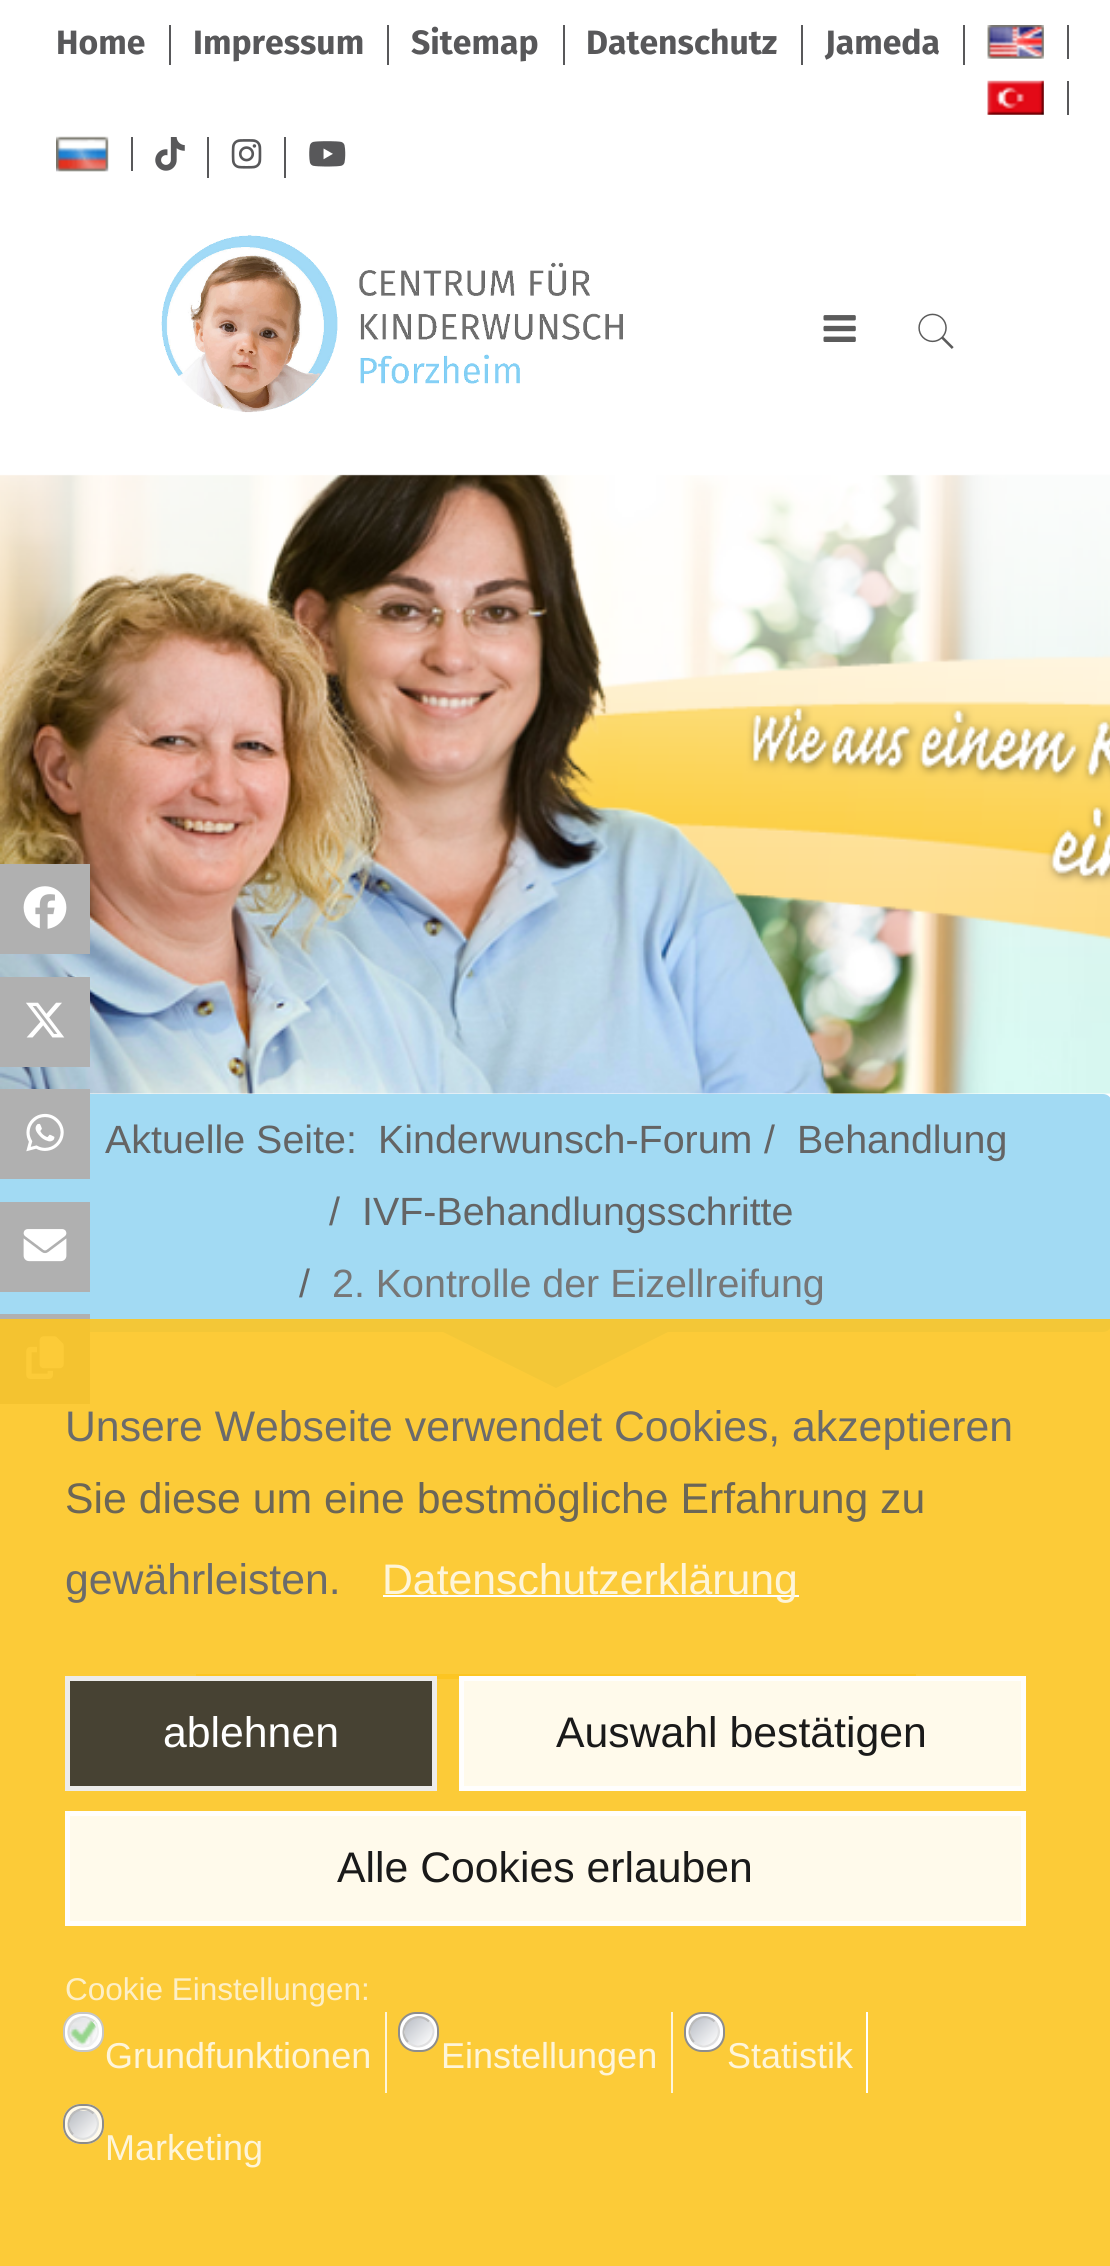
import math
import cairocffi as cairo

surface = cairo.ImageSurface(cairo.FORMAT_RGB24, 1110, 2266)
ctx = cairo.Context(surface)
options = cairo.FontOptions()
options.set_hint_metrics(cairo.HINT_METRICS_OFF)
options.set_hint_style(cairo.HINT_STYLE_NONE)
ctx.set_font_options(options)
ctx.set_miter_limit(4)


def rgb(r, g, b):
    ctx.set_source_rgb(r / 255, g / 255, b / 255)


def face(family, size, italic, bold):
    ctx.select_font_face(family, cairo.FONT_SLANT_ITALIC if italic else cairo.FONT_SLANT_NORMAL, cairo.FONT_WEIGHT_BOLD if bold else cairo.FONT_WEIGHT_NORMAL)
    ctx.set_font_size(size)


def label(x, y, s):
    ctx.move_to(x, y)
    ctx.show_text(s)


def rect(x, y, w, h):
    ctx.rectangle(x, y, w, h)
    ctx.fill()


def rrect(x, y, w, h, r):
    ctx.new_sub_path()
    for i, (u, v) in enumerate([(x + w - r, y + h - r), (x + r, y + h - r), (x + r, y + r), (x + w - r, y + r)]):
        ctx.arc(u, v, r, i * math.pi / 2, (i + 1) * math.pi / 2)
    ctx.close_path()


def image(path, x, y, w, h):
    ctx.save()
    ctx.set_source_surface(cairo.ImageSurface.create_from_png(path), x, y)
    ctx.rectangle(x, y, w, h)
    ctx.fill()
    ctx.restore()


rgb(255, 255, 255)
ctx.paint()
rgb(88, 88, 90)
rect(169, 25, 2, 40)
face('Fira Sans', 33.75, 0, 1)
label(56, 54, 'Home')
rect(387, 25, 2, 40)
label(193, 54, 'Impressum')
rect(563, 25, 2, 40)
label(411, 54, 'Sitemap')
rect(801, 25, 2, 40)
label(586, 54, 'Datenschutz')
rect(963, 25, 2, 40)
label(825, 54, 'Jameda')
rect(1067, 25, 2, 34)
image('image0.png', 987, 25, 57, 34)
rect(1067, 81, 2, 34)
image('image1.png', 987, 80, 57, 35)
rect(131, 137, 2, 34)
image('image2.png', 56, 136, 53, 36)
rect(207, 137, 2, 41)
image('image3.png', 155, 137, 30, 34)
rect(284, 137, 2, 41)
image('image4.png', 231, 139, 31, 30)
image('image5.png', 309, 141, 37, 26)
image('image14.png', 0, 474, 1110, 620)
ctx.set_source_rgba(1, 1, 1, 0.8)
rect(0, 474, 975, 1)
image('image6.png', 161, 235, 462, 178)
image('image7.png', 823, 315, 33, 27)
image('image8.png', 918, 313, 36, 36)
rgb(176, 176, 176)
rect(0, 864, 90, 90)
image('image9.png', 23, 886, 44, 43)
rect(0, 977, 90, 90)
image('image10.png', 26, 1002, 39, 36)
rgb(162, 218, 243)
rrect(0, 1094, 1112, 238, 9)
ctx.fill()
rgb(176, 176, 176)
rect(0, 1089, 90, 90)
image('image11.png', 26, 1113, 38, 39)
rect(0, 1202, 90, 90)
image('image12.png', 23, 1229, 44, 33)
rect(0, 1314, 90, 90)
image('image13.png', 26, 1336, 38, 43)
face('Liberation Sans', 39.4, 0, 0)
rgb(100, 100, 100)
label(105, 1153, 'Aktuelle Seite:')
label(378, 1153, 'Kinderwunsch-Forum')
label(764, 1153, '/')
label(797, 1153, 'Behandlung')
label(329, 1225, '/')
label(362, 1225, 'IVF-Behandlungsschritte')
label(299, 1297, '/')
rgb(119, 119, 119)
label(332, 1297, '2. Kontrolle der Eizellreifung')
rgb(162, 218, 243)
ctx.new_path()
ctx.move_to(443, 1332)
ctx.line_to(668, 1332)
ctx.line_to(556, 1388)
ctx.close_path()
ctx.fill()
rgb(252, 197, 35)
rect(196, 1674, 720, 5)
ctx.set_source_rgba(0.988, 0.773, 0.137, 0.9)
rect(0, 1319, 1110, 947)
face('Liberation Sans', 42.75, 0, 0)
rgb(107, 107, 107)
label(65, 1441, 'Unsere Webseite verwendet Cookies, akzeptieren')
rgb(107, 102, 87)
label(65, 1513, 'Sie diese um eine bestmögliche Erfahrung zu')
rgb(107, 107, 107)
label(65, 1594, 'gewährleisten.')
rgb(255, 255, 255)
rect(383, 1595, 416, 2)
rgb(254, 245, 217)
label(382, 1594, 'Datenschutzerklärung')
ctx.set_source_rgba(0.2, 0.2, 0.2, 0.9)
ctx.rectangle(67.5, 1678.5, 367, 110)
ctx.fill_preserve()
rgb(237, 236, 235)
ctx.set_line_width(5)
ctx.stroke()
rgb(255, 255, 255)
label(163, 1747, 'ablehnen')
ctx.set_source_rgba(1, 1, 1, 0.9)
ctx.rectangle(461.5, 1678.5, 562, 110)
ctx.fill_preserve()
rgb(255, 254, 253)
ctx.stroke()
rgb(26, 26, 26)
label(556, 1747, 'Auswahl bestätigen')
ctx.set_source_rgba(1, 1, 1, 0.9)
ctx.rectangle(67.5, 1813.5, 956, 110)
ctx.fill_preserve()
rgb(255, 254, 253)
ctx.stroke()
rgb(26, 26, 26)
label(337, 1882, 'Alle Cookies erlauben')
face('Liberation Sans', 31.5, 0, 0)
rgb(253, 239, 199)
label(65, 2000, 'Cookie Einstellungen:')
rgb(255, 255, 255)
rrect(64, 2013, 39, 38, 17)
ctx.fill_preserve()
rgb(198, 198, 198)
ctx.set_line_width(2)
ctx.stroke()
image('image15.png', 67, 2018, 31, 30)
ctx.new_path()
ctx.move_to(93.5, 2021.5)
ctx.curve_to(107, 2035, 86.5, 2055.5, 73, 2042)
rgb(239, 240, 240)
ctx.set_line_width(2.2)
ctx.stroke()
ctx.new_path()
ctx.move_to(73, 2042)
ctx.curve_to(59.5, 2028.5, 80, 2008, 93.5, 2021.5)
rgb(221, 221, 221)
ctx.stroke()
ctx.set_source_rgba(1, 1, 1, 0.81)
rect(385, 2012, 2, 81)
face('Liberation Sans', 36, 0, 0)
rgb(254, 245, 217)
label(105, 2068, 'Grundfunktionen')
rgb(255, 255, 255)
rrect(399, 2013, 39, 38, 17)
ctx.fill_preserve()
rgb(141, 141, 141)
ctx.set_line_width(2)
ctx.stroke()
ctx.save()
rrect(403, 2016, 31, 32, 15.5)
ctx.clip()
gradient = cairo.LinearGradient(405, 2018, 432, 2045)
gradient.add_color_stop_rgba(0, 0.725, 0.741, 0.773, 1)
gradient.add_color_stop_rgba(1, 1, 1, 1, 1)
ctx.set_source(gradient)
rect(405, 2018, 27, 27)
ctx.restore()
ctx.new_path()
ctx.move_to(429, 2021.5)
ctx.curve_to(442.5, 2035, 422, 2055.5, 408, 2042)
rgb(224, 224, 225)
ctx.set_line_width(2.2)
ctx.stroke()
ctx.new_path()
ctx.move_to(408, 2042)
ctx.curve_to(394.5, 2028.5, 415, 2008, 429, 2021.5)
rgb(187, 187, 187)
ctx.stroke()
ctx.set_source_rgba(1, 1, 1, 0.81)
rect(671, 2012, 2, 81)
rgb(254, 245, 217)
label(441, 2068, 'Einstellungen')
rgb(255, 255, 255)
rrect(685, 2013, 39, 38, 17)
ctx.fill_preserve()
rgb(141, 141, 141)
ctx.set_line_width(2)
ctx.stroke()
ctx.save()
rrect(689, 2016, 31, 32, 15.5)
ctx.clip()
gradient = cairo.LinearGradient(691, 2018, 718, 2045)
gradient.add_color_stop_rgba(0, 0.725, 0.741, 0.773, 1)
gradient.add_color_stop_rgba(1, 1, 1, 1, 1)
ctx.set_source(gradient)
rect(691, 2018, 27, 27)
ctx.restore()
ctx.new_path()
ctx.move_to(714.5, 2021.5)
ctx.curve_to(728, 2035, 707.5, 2055.5, 694, 2042)
rgb(224, 224, 225)
ctx.set_line_width(2.2)
ctx.stroke()
ctx.new_path()
ctx.move_to(694, 2042)
ctx.curve_to(680.5, 2028.5, 701, 2008, 714.5, 2021.5)
rgb(187, 187, 187)
ctx.stroke()
rgb(255, 255, 255)
rect(866, 2012, 2, 81)
rgb(254, 245, 217)
label(727, 2068, 'Statistik')
ctx.set_source_rgba(1, 1, 1, 0.9)
rrect(63, 2104, 41, 40, 18)
ctx.fill()
rrect(64, 2105, 39, 38, 17)
ctx.set_source_rgba(0.502, 0.502, 0.502, 0.9)
ctx.set_line_width(2)
ctx.stroke()
ctx.save()
rrect(68, 2108, 31, 32, 15.5)
ctx.clip()
gradient = cairo.LinearGradient(70, 2111, 97, 2138)
gradient.add_color_stop_rgba(0, 0.725, 0.741, 0.765, 1)
gradient.add_color_stop_rgba(1, 1, 0.996, 0.992, 1)
ctx.set_source(gradient)
rect(70, 2111, 27, 27)
ctx.restore()
ctx.new_path()
ctx.move_to(93.5, 2113.5)
ctx.curve_to(107, 2127.5, 86.5, 2148, 73, 2134.5)
ctx.set_source_rgba(0.863, 0.867, 0.871, 0.9)
ctx.set_line_width(2.2)
ctx.stroke()
ctx.new_path()
ctx.move_to(73, 2134.5)
ctx.curve_to(59.5, 2120.5, 80, 2100, 93.5, 2113.5)
rgb(187, 187, 187)
ctx.stroke()
rgb(254, 245, 217)
label(105, 2160, 'Marketing')
surface.write_to_png('render.png')
